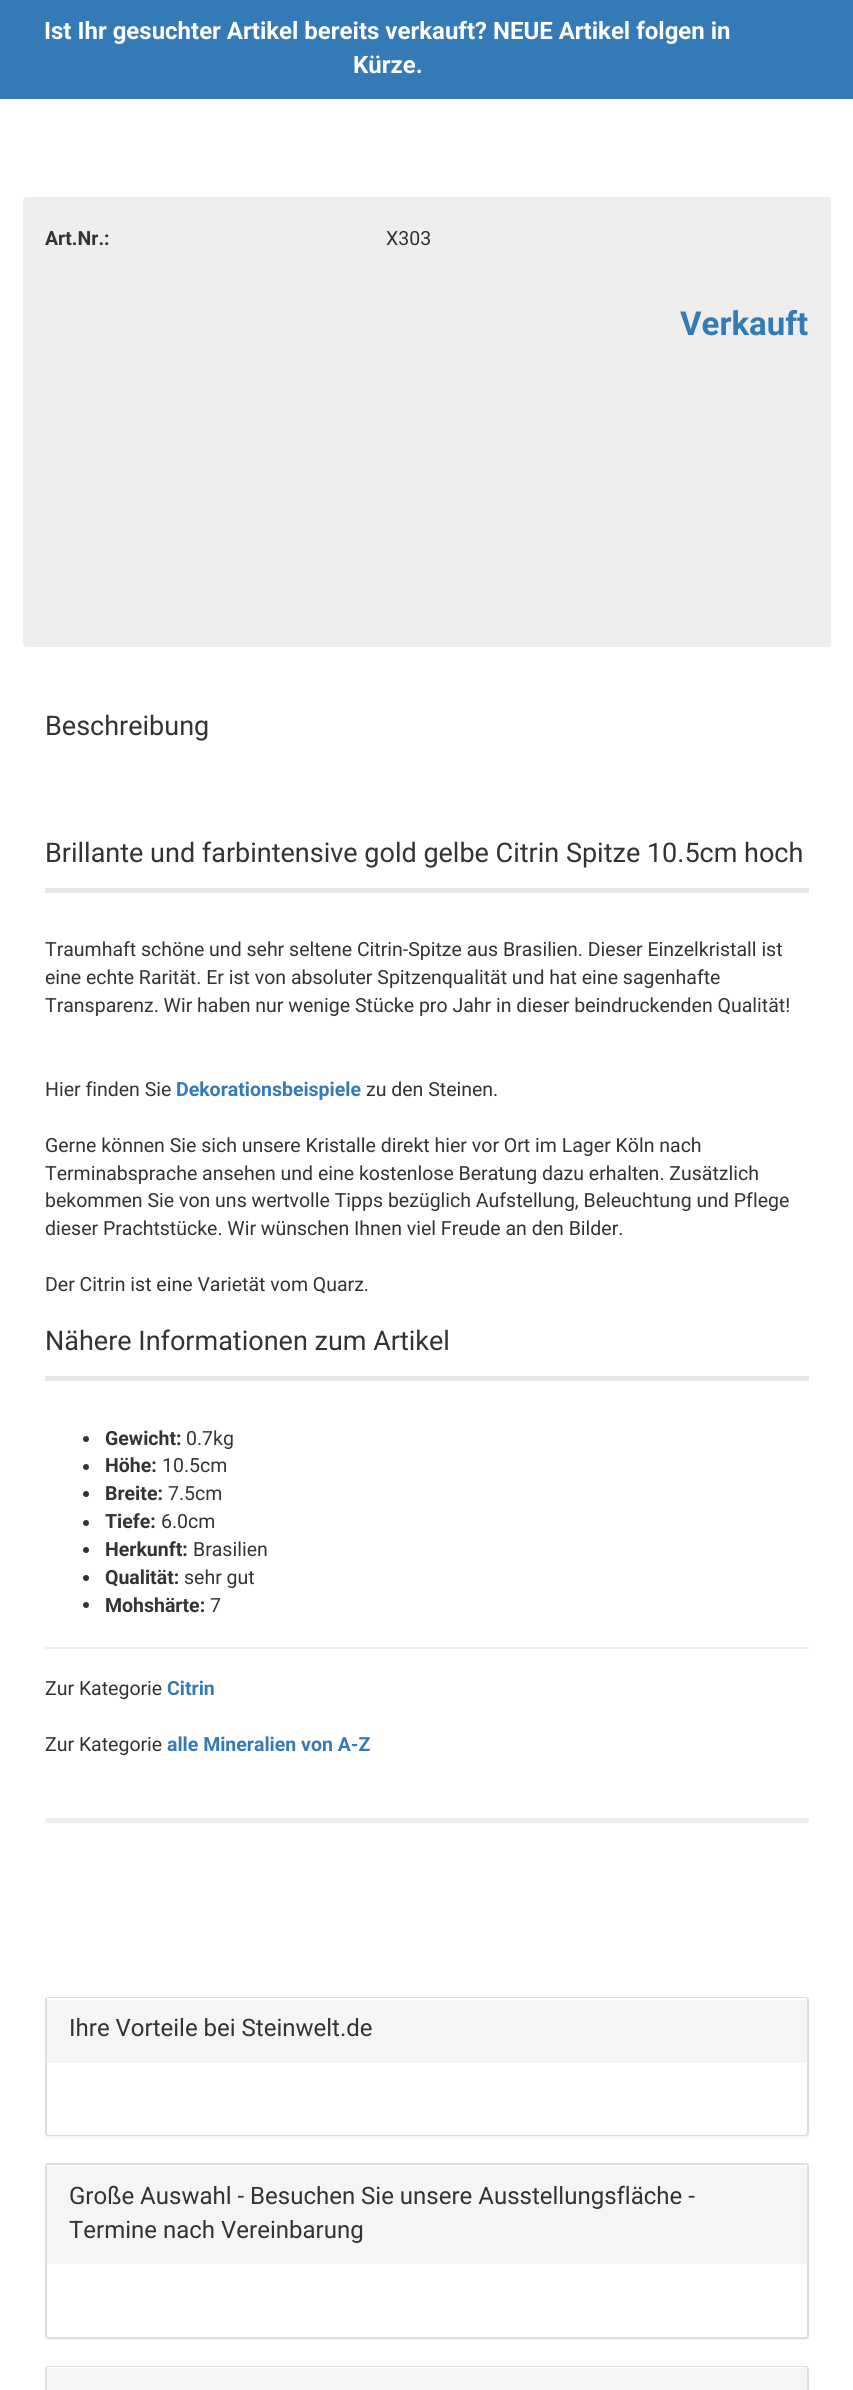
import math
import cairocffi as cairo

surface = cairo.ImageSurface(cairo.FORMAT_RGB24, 853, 2390)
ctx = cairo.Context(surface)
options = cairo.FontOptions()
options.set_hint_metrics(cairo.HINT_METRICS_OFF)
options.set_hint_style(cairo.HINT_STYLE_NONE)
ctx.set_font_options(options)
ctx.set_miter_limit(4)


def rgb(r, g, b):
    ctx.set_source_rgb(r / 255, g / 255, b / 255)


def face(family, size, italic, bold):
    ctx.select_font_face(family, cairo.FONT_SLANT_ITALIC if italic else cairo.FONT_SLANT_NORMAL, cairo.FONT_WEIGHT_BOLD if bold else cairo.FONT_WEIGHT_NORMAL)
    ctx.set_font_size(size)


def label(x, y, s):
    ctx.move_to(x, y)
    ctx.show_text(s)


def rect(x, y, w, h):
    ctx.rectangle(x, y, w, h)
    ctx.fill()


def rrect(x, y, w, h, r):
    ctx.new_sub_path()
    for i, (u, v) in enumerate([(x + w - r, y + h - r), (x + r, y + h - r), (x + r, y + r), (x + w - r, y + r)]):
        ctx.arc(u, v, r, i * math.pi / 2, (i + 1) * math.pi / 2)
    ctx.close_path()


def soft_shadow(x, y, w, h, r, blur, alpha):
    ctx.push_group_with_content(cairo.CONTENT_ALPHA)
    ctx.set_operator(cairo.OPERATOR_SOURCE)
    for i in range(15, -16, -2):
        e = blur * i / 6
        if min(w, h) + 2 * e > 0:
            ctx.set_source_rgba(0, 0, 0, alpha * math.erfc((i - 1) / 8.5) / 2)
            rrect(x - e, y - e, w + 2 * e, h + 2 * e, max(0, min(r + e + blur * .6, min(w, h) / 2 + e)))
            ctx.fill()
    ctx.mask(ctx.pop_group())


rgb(255, 255, 255)
ctx.paint()
rgb(51, 122, 183)
rect(0, 0, 853, 99)
face('Roboto', 24, 0, 1)
rgb(255, 255, 255)
label(44, 39, 'Ist Ihr gesuchter Artikel bereits verkauft? NEUE Artikel folgen in')
label(353, 73, 'Kürze.')
rgb(238, 238, 238)
rrect(23, 197, 808, 450, 3)
ctx.fill()
face('Roboto', 19.5, 0, 1)
rgb(51, 51, 51)
label(45, 245, 'Art.Nr.:')
face('Roboto', 19.5, 0, 0)
label(386, 245, 'X303')
face('Roboto', 33, 0, 1)
rgb(51, 122, 183)
label(680, 335, 'Verkauft')
face('Roboto', 27, 0, 0)
rgb(51, 51, 51)
label(45, 735, 'Beschreibung')
rgb(238, 238, 238)
rect(45, 1818, 764, 5)
rgb(231, 231, 231)
rect(45, 888, 764, 5)
rgb(51, 51, 51)
label(45, 862, 'Brillante und farbintensive gold gelbe Citrin Spitze 10.5cm hoch')
face('Roboto', 19.5, 0, 0)
label(45, 956, 'Traumhaft schöne und sehr seltene Citrin-Spitze aus Brasilien. Dieser Einzelkristall ist')
label(45, 984, 'eine echte Rarität. Er ist von absoluter Spitzenqualität und hat eine sagenhafte')
label(45, 1012, 'Transparenz. Wir haben nur wenige Stücke pro Jahr in dieser beindruckenden Qualität!')
label(45, 1096, 'Hier finden Sie')
face('Roboto', 19.5, 0, 1)
rgb(51, 122, 183)
label(176, 1096, 'Dekorationsbeispiele')
face('Roboto', 19.5, 0, 0)
rgb(51, 51, 51)
label(366, 1096, 'zu den Steinen.')
label(45, 1152, 'Gerne können Sie sich unsere Kristalle direkt hier vor Ort im Lager Köln nach')
label(45, 1180, 'Terminabsprache ansehen und eine kostenlose Beratung dazu erhalten. Zusätzlich')
label(45, 1207, 'bekommen Sie von uns wertvolle Tipps bezüglich Aufstellung, Beleuchtung und Pflege')
label(45, 1235, 'dieser Prachtstücke. Wir wünschen Ihnen viel Freude an den Bilder.')
label(45, 1291, 'Der Citrin ist eine Varietät vom Quarz.')
rgb(231, 231, 231)
rect(45, 1376, 764, 5)
face('Roboto', 27, 0, 0)
rgb(51, 51, 51)
label(45, 1350, 'Nähere Informationen zum Artikel')
ctx.new_path()
ctx.arc(86, 1439, 3, 0, 2 * math.pi)
ctx.fill()
face('Roboto', 19.5, 0, 1)
label(105, 1445, 'Gewicht:')
face('Roboto', 19.5, 0, 0)
label(186, 1445, '0.7kg')
ctx.new_path()
ctx.arc(86, 1467, 3, 0, 2 * math.pi)
ctx.fill()
face('Roboto', 19.5, 0, 1)
label(105, 1472, 'Höhe:')
face('Roboto', 19.5, 0, 0)
label(162, 1472, '10.5cm')
ctx.new_path()
ctx.arc(86, 1494, 3, 0, 2 * math.pi)
ctx.fill()
face('Roboto', 19.5, 0, 1)
label(105, 1500, 'Breite:')
face('Roboto', 19.5, 0, 0)
label(168, 1500, '7.5cm')
ctx.new_path()
ctx.arc(86, 1523, 3, 0, 2 * math.pi)
ctx.fill()
face('Roboto', 19.5, 0, 1)
label(105, 1528, 'Tiefe:')
face('Roboto', 19.5, 0, 0)
label(161, 1528, '6.0cm')
ctx.new_path()
ctx.arc(86, 1550, 3, 0, 2 * math.pi)
ctx.fill()
face('Roboto', 19.5, 0, 1)
label(105, 1556, 'Herkunft:')
face('Roboto', 19.5, 0, 0)
label(193, 1556, 'Brasilien')
ctx.new_path()
ctx.arc(86, 1578, 3, 0, 2 * math.pi)
ctx.fill()
face('Roboto', 19.5, 0, 1)
label(105, 1584, 'Qualität:')
face('Roboto', 19.5, 0, 0)
label(184, 1584, 'sehr gut')
ctx.new_path()
ctx.arc(86, 1605, 3, 0, 2 * math.pi)
ctx.fill()
face('Roboto', 19.5, 0, 1)
label(105, 1612, 'Mohshärte:')
face('Roboto', 19.5, 0, 0)
label(210, 1612, '7')
rgb(238, 238, 238)
rect(45, 1647, 764, 2)
rgb(51, 51, 51)
label(45, 1695, 'Zur Kategorie')
face('Roboto', 19.5, 0, 1)
rgb(51, 122, 183)
label(167, 1695, 'Citrin')
face('Roboto', 19.5, 0, 0)
rgb(51, 51, 51)
label(45, 1751, 'Zur Kategorie')
face('Roboto', 19.5, 0, 1)
rgb(51, 122, 183)
label(167, 1751, 'alle Mineralien von A-Z')
rgb(0, 0, 0)
soft_shadow(45, 1998, 764, 140, 3, 1, 0.05)
rgb(255, 255, 255)
rrect(46, 1998, 762, 137, 2)
ctx.fill_preserve()
rgb(221, 221, 221)
ctx.stroke()
rgb(245, 245, 245)
ctx.new_path()
ctx.move_to(48.5, 1998)
ctx.line_to(805.5, 1998)
ctx.curve_to(806.5, 1998, 807, 1998.5, 807, 1999.5)
ctx.line_to(807, 2063)
ctx.line_to(47, 2063)
ctx.line_to(47, 1999.5)
ctx.curve_to(47, 1998.5, 47.5, 1998, 48.5, 1998)
ctx.close_path()
ctx.fill()
rgb(255, 255, 255)
ctx.new_path()
ctx.move_to(48, 2000)
ctx.line_to(806, 2000)
ctx.line_to(807, 2001)
ctx.line_to(807, 1999)
ctx.line_to(806, 1998)
ctx.line_to(48, 1998)
ctx.curve_to(47, 1998, 47, 1999, 47, 2000)
ctx.close_path()
ctx.fill()
face('Roboto', 24, 0, 0)
rgb(51, 51, 51)
label(69, 2036, 'Ihre Vorteile bei Steinwelt.de')
rgb(255, 255, 255)
ctx.new_path()
ctx.move_to(47, 2063)
ctx.line_to(807, 2063)
ctx.line_to(807, 2132)
ctx.curve_to(807, 2133.5, 805.5, 2135, 804, 2135)
ctx.line_to(50, 2135)
ctx.curve_to(48.5, 2135, 47, 2133.5, 47, 2132)
ctx.close_path()
ctx.fill()
rgb(0, 0, 0)
soft_shadow(45, 2165, 764, 175, 3, 1, 0.05)
rgb(255, 255, 255)
rrect(46, 2164, 762, 174, 2)
ctx.fill_preserve()
rgb(221, 221, 221)
ctx.stroke()
rgb(245, 245, 245)
ctx.new_path()
ctx.move_to(48.5, 2165)
ctx.line_to(805.5, 2165)
ctx.curve_to(806.5, 2165, 807, 2165.5, 807, 2166.5)
ctx.line_to(807, 2264)
ctx.line_to(47, 2264)
ctx.line_to(47, 2166.5)
ctx.curve_to(47, 2165.5, 47.5, 2165, 48.5, 2165)
ctx.close_path()
ctx.fill()
rgb(255, 255, 255)
ctx.new_path()
ctx.move_to(48, 2166)
ctx.line_to(806, 2166)
ctx.line_to(807, 2168)
ctx.line_to(807, 2166)
ctx.line_to(806, 2165)
ctx.line_to(48, 2165)
ctx.curve_to(47, 2165, 47, 2166, 47, 2167)
ctx.close_path()
ctx.fill()
rgb(51, 51, 51)
label(69, 2204, 'Große Auswahl - Besuchen Sie unsere Ausstellungsfläche -')
label(69, 2238, 'Termine nach Vereinbarung')
rrect(46, 2367, 762, 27, 2)
rgb(221, 221, 221)
ctx.stroke()
rgb(245, 245, 245)
ctx.new_path()
ctx.move_to(48.5, 2367)
ctx.line_to(805.5, 2367)
ctx.curve_to(806.5, 2367, 807, 2367.5, 807, 2368.5)
ctx.line_to(807, 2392)
ctx.line_to(47, 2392)
ctx.line_to(47, 2368.5)
ctx.curve_to(47, 2367.5, 47.5, 2367, 48.5, 2367)
ctx.close_path()
ctx.fill()
rgb(255, 255, 255)
ctx.new_path()
ctx.move_to(48, 2368)
ctx.line_to(806, 2368)
ctx.line_to(807, 2370)
ctx.line_to(807, 2368)
ctx.curve_to(807, 2368, 806, 2367, 806, 2367)
ctx.line_to(48, 2367)
ctx.curve_to(48, 2367, 47, 2368, 47, 2368)
ctx.close_path()
ctx.fill()
surface.write_to_png('render.png')
